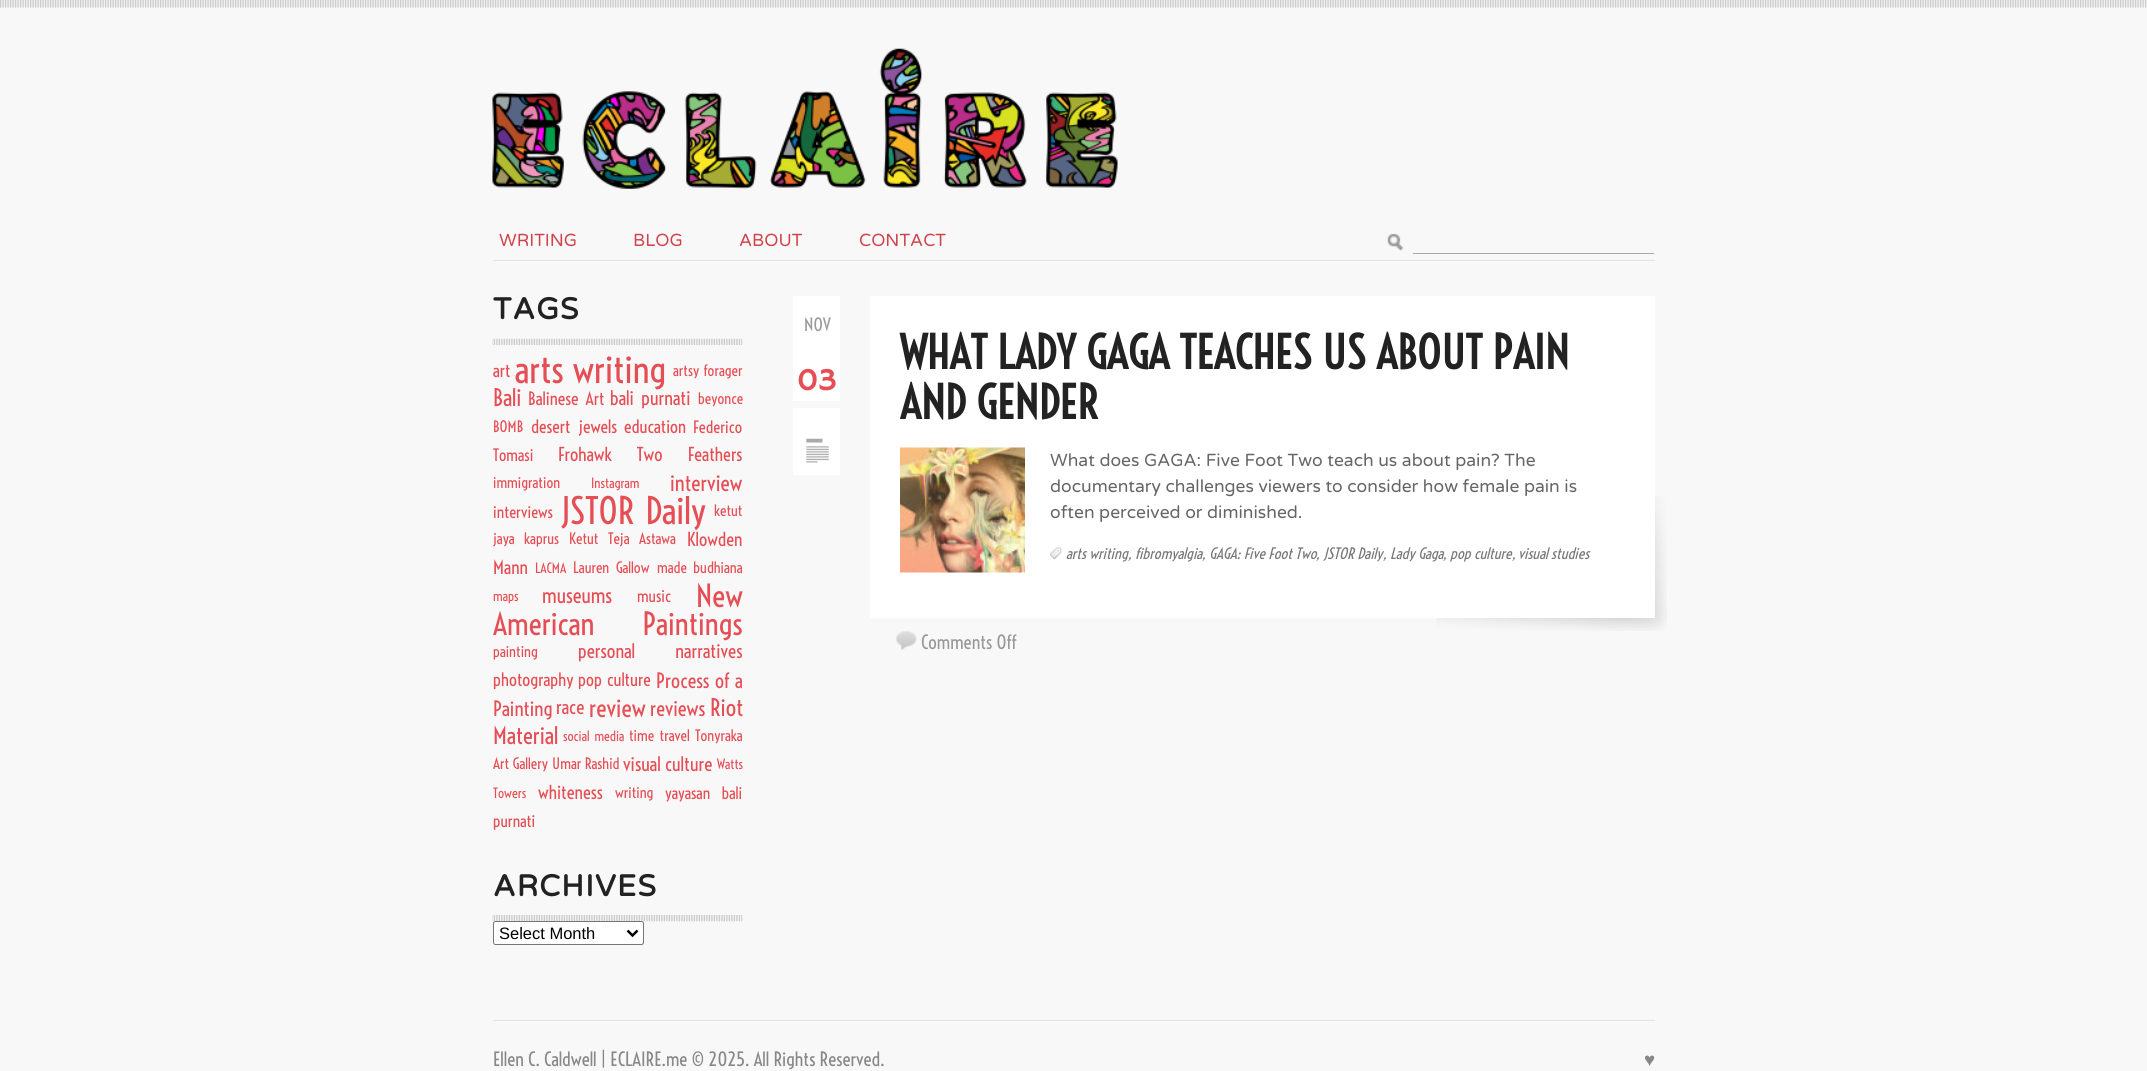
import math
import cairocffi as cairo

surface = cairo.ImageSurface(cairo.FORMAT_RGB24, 2147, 1071)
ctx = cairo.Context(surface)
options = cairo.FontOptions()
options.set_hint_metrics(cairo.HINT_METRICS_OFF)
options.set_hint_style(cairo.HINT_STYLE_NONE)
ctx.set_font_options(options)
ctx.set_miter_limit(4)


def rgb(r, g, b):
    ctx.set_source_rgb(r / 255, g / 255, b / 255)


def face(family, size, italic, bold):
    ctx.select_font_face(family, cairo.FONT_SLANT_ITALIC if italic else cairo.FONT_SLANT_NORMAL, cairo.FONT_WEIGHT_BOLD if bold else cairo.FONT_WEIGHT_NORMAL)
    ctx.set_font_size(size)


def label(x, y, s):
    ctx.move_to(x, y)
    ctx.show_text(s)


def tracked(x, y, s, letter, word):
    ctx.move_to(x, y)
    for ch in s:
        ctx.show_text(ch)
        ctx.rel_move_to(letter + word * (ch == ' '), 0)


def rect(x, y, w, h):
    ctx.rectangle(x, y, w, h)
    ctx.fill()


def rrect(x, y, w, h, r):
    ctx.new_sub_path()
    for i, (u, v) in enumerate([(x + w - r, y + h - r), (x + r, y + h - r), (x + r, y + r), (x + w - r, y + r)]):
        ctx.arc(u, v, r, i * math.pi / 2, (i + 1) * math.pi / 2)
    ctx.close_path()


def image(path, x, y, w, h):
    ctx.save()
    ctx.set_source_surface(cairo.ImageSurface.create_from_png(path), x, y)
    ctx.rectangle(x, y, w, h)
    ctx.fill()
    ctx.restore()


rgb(248, 248, 248)
ctx.paint()
image('image0.png', 0, 0, 2147, 8)
image('image1.png', 492, 48, 626, 141)
rgb(227, 227, 227)
rect(493, 260, 1162, 1)
face('Varela Round', 17.5, 0, 0)
rgb(207, 67, 76)
label(499, 246, 'WRITING')
label(633, 246, 'BLOG')
label(739, 246, 'ABOUT')
label(859, 246, 'CONTACT')
image('image2.png', 1387, 233, 17, 18)
rgb(170, 170, 170)
rect(1413, 253, 241, 1)
image('image3.png', 492, 338, 251, 7)
face('Varela Round', 30, 0, 1)
rgb(34, 34, 34)
tracked(493, 319, 'TAGS', 1.25, 0)
face('Voltaire', 17.5, 0, 0)
rgb(230, 78, 85)
label(493, 377, 'art')
face('Voltaire', 36.5, 0, 0)
tracked(515, 383, 'arts writing', 0, 1)
face('Voltaire', 15, 0, 0)
tracked(673, 376, 'artsy forager', 0, 1)
face('Voltaire', 23, 0, 0)
label(493, 406, 'Bali')
face('Voltaire', 17.5, 0, 0)
tracked(528, 405, 'Balinese Art', 0, 3)
face('Voltaire', 19, 0, 0)
tracked(610, 405, 'bali purnati', 0, 3)
face('Voltaire', 15, 0, 0)
label(698, 404, 'beyonce')
label(493, 432, 'BOMB')
face('Voltaire', 17.5, 0, 0)
tracked(531, 433, 'desert jewels', 0, 4)
label(624, 433, 'education')
face('Voltaire', 16.25, 0, 0)
label(693, 433, 'Federico')
label(493, 461, 'Tomasi')
face('Voltaire', 18.25, 0, 0)
tracked(558, 461, 'Frohawk Two Feathers', 0, 21)
face('Voltaire', 15, 0, 0)
label(493, 488, 'immigration')
face('Voltaire', 13.5, 0, 0)
label(591, 488, 'Instagram')
face('Voltaire', 21.5, 0, 0)
label(670, 491, 'interview')
face('Voltaire', 16.25, 0, 0)
label(493, 518, 'interviews')
face('Voltaire', 36, 0, 0)
tracked(560, 524, 'JSTOR Daily', 0, 3)
face('Voltaire', 15, 0, 0)
label(714, 516, 'ketut')
tracked(493, 544, 'jaya kaprus', 0, 6)
tracked(569, 544, 'Ketut Teja Astawa', 0, 6)
face('Voltaire', 18.25, 0, 0)
label(687, 546, 'Klowden')
label(493, 574, 'Mann')
face('Voltaire', 13.5, 0, 0)
label(535, 573, 'LACMA')
face('Voltaire', 15, 0, 0)
tracked(573, 573, 'Lauren Gallow', 0, 3)
tracked(657, 573, 'made budhiana', 0, 3)
face('Voltaire', 13.5, 0, 0)
label(493, 601, 'maps')
face('Voltaire', 20.5, 0, 0)
label(542, 603, 'museums')
face('Voltaire', 16.25, 0, 0)
label(637, 602, 'music')
face('Voltaire', 30.25, 0, 0)
label(696, 607, 'New')
tracked(493, 635, 'American Paintings', 0, 41)
face('Voltaire', 15, 0, 0)
label(493, 657, 'painting')
face('Voltaire', 19, 0, 0)
tracked(578, 658, 'personal narratives', 0, 36)
face('Voltaire', 17.5, 0, 0)
label(493, 686, 'photography')
tracked(578, 686, 'pop culture', 0, 1)
face('Voltaire', 20, 0, 0)
tracked(656, 688, 'Process of a', 0, 1)
label(493, 716, 'Painting')
face('Voltaire', 19, 0, 0)
label(556, 714, 'race')
face('Voltaire', 24, 0, 0)
label(589, 717, 'review')
face('Voltaire', 20.5, 0, 0)
label(650, 716, 'reviews')
face('Voltaire', 23, 0, 0)
label(710, 716, 'Riot')
label(493, 744, 'Material')
face('Voltaire', 13.5, 0, 0)
tracked(563, 741, 'social media', 0, 2)
face('Voltaire', 15, 0, 0)
tracked(629, 741, 'time travel', 0, 2)
label(695, 741, 'Tonyraka')
label(493, 769, 'Art Gallery')
label(552, 769, 'Umar Rashid')
face('Voltaire', 19, 0, 0)
label(623, 771, 'visual culture')
face('Voltaire', 13.5, 0, 0)
label(717, 769, 'Watts')
label(493, 798, 'Towers')
face('Voltaire', 18.25, 0, 0)
label(538, 799, 'whiteness')
face('Voltaire', 15, 0, 0)
label(615, 798, 'writing')
face('Voltaire', 16.25, 0, 0)
tracked(665, 799, 'yayasan bali', 0, 8)
label(493, 827, 'purnati')
image('image4.png', 492, 915, 251, 7)
face('Varela Round', 30, 0, 1)
rgb(34, 34, 34)
tracked(493, 896, 'ARCHIVES', 1.25, 0)
rgb(255, 255, 255)
rrect(493.5, 921.5, 150, 23, 2)
ctx.fill_preserve()
rgb(118, 118, 118)
ctx.set_line_width(1)
ctx.stroke()
ctx.new_path()
ctx.move_to(627.5, 930.5)
ctx.line_to(632.5, 935.5)
ctx.line_to(637.5, 930.5)
rgb(0, 0, 0)
ctx.set_line_width(2.5)
ctx.stroke()
face('Liberation Sans', 16.5, 0, 0)
label(499, 939, 'Select Month')
rgb(255, 255, 255)
rect(793, 296, 47, 179)
face('Voltaire', 17.5, 0, 0)
rgb(153, 153, 153)
label(804, 331, 'NOV')
face('Hammersmith One', 32, 0, 0)
rgb(230, 78, 85)
label(797, 390, '03')
rgb(248, 248, 248)
rect(793, 401, 48, 7)
image('image5.png', 806, 438, 23, 25)
image('image7.png', 1436, 496, 231, 135)
rgb(255, 255, 255)
rect(870, 296, 785, 322)
face('Voltaire', 45, 0, 1)
rgb(34, 34, 34)
label(900, 369, 'WHAT LADY GAGA TEACHES US ABOUT PAIN')
label(900, 419, 'AND GENDER')
image('image6.png', 900, 447, 125, 126)
face('Varela Round', 17.5, 0, 0)
rgb(102, 102, 102)
label(1050, 466, 'What does GAGA: Five Foot Two teach us about pain? The')
label(1050, 492, 'documentary challenges viewers to consider how female pain is')
label(1050, 518, 'often perceived or diminished.')
image('image8.png', 1050, 547, 12, 12)
face('Voltaire', 15, 1, 0)
rgb(119, 119, 119)
label(1066, 559, 'arts writing')
label(1135, 559, 'fibromyalgia')
label(1209, 559, 'GAGA: Five Foot Two')
label(1323, 559, 'JSTOR Daily')
label(1390, 559, 'Lady Gaga')
label(1450, 559, 'pop culture')
label(1518, 559, 'visual studies')
rgb(136, 136, 136)
label(1128, 559, ',')
label(1202, 559, ',')
label(1316, 559, ',')
label(1383, 559, ',')
label(1443, 559, ',')
label(1512, 559, ',')
image('image9.png', 896, 631, 21, 19)
face('Voltaire', 18.75, 0, 0)
rgb(153, 153, 153)
label(921, 649, 'Comments Off')
rgb(227, 227, 227)
rect(493, 1020, 1162, 1)
rgb(136, 136, 136)
label(493, 1066, 'Ellen C. Caldwell | ECLAIRE.me © 2025. All Rights Reserved.')
face('Liberation Sans', 18.75, 0, 0)
label(1644, 1066, '♥')
surface.write_to_png('render.png')
